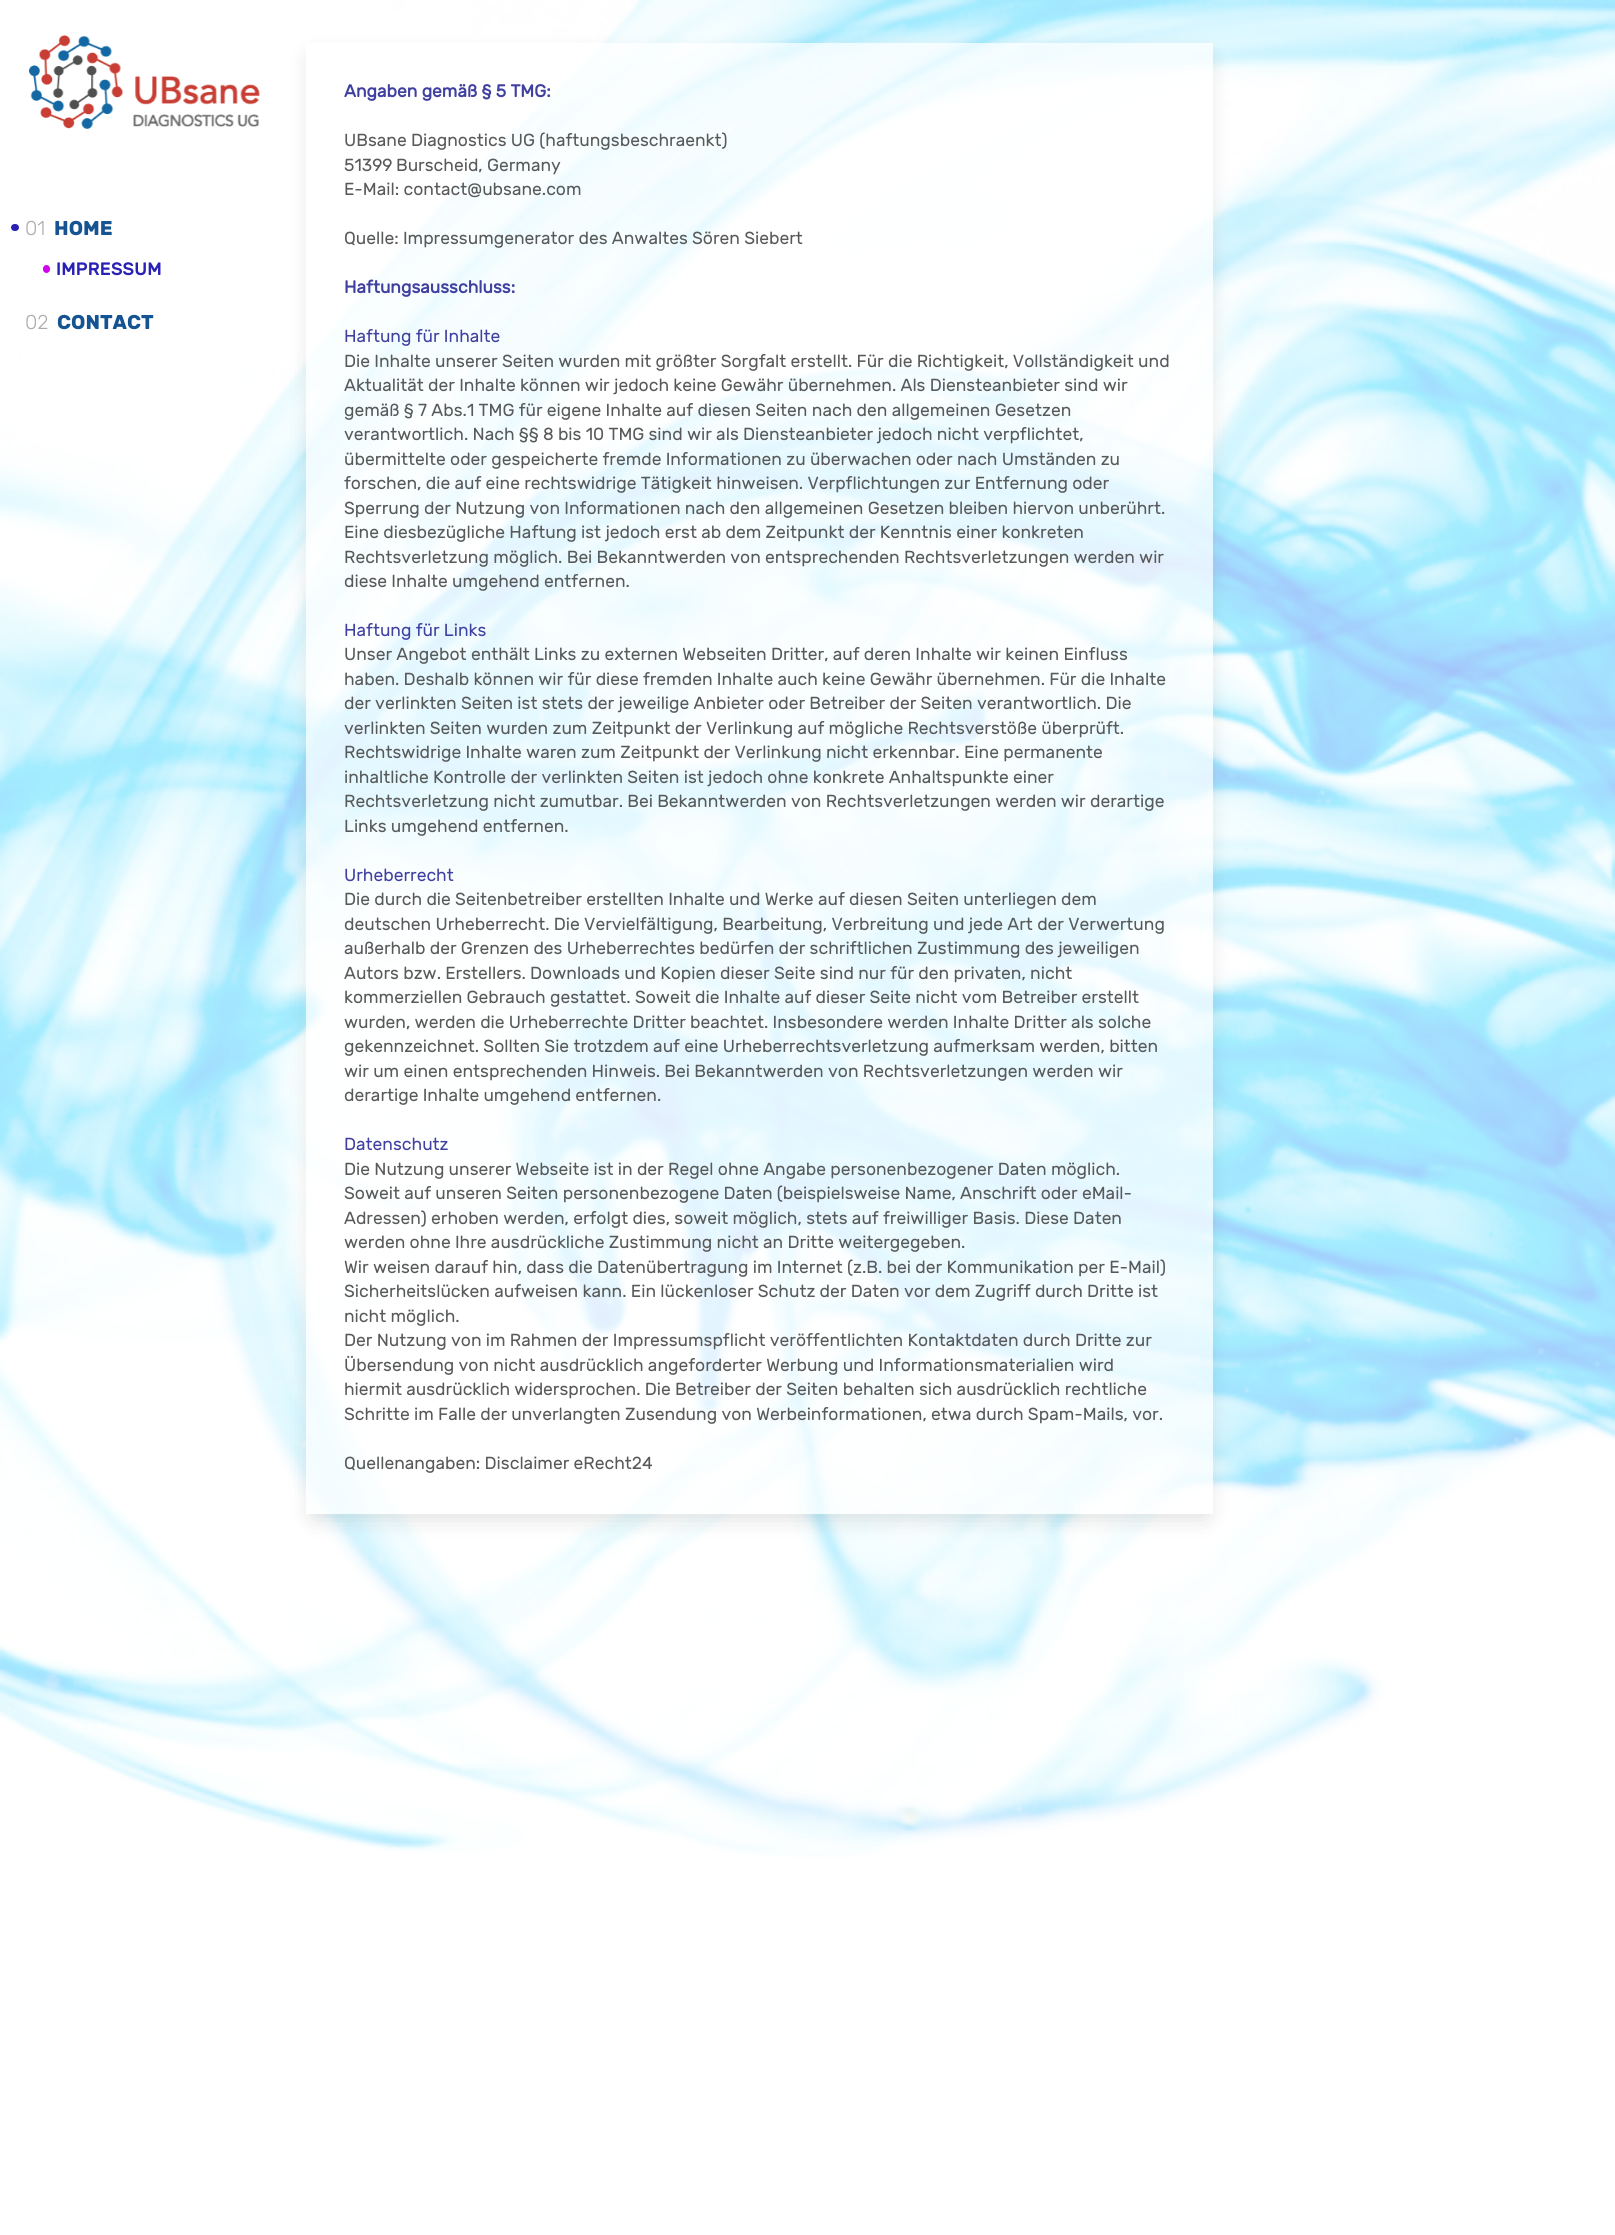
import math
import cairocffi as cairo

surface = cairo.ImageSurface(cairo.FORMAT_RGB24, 1615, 2235)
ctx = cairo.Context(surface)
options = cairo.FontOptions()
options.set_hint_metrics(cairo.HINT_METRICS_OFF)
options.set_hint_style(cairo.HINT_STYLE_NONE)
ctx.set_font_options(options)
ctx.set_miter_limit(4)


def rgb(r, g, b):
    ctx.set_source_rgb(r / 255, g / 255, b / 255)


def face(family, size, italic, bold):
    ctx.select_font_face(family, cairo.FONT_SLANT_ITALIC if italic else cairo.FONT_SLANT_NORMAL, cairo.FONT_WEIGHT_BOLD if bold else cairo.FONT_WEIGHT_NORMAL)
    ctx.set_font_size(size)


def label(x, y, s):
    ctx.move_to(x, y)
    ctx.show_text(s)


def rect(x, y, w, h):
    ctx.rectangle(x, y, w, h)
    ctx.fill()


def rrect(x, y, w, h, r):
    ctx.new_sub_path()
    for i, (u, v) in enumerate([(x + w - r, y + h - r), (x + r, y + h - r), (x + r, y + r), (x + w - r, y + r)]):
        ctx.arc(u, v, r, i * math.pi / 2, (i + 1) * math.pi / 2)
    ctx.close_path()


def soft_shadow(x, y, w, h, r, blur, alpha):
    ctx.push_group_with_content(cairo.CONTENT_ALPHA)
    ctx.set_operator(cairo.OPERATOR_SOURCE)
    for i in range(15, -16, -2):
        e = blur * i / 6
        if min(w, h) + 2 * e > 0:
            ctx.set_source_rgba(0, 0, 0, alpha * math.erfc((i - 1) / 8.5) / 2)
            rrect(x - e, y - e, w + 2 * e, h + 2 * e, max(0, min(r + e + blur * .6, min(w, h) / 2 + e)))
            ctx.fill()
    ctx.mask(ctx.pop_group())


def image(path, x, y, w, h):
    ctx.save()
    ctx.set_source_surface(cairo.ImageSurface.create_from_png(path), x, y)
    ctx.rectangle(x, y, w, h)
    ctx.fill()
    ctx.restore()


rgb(255, 255, 255)
ctx.paint()
image('image0.png', 0, 0, 1615, 1857)
image('image1.png', 28, 35, 232, 94)
rgb(41, 33, 180)
rrect(11, 224, 8, 7, 3.5)
ctx.fill()
face('Rubik Light', 20, 0, 0)
rgb(172, 172, 172)
label(25, 235, '01')
face('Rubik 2', 20, 0, 1)
rgb(21, 83, 146)
label(54, 235, 'HOME')
rgb(206, 5, 237)
rrect(43, 265, 7, 8, 3.5)
ctx.fill()
face('Rubik Medium', 18, 0, 0)
rgb(41, 33, 180)
label(56, 275, 'IMPRESSUM')
face('Rubik Light', 20, 0, 0)
rgb(172, 172, 172)
label(25, 329, '02')
face('Rubik 2', 20, 0, 1)
rgb(21, 83, 146)
label(57, 329, 'CONTACT')
ctx.save()
ctx.set_fill_rule(cairo.FILL_RULE_EVEN_ODD)
ctx.new_path()
ctx.move_to(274, 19)
ctx.line_to(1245, 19)
ctx.line_to(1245, 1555)
ctx.line_to(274, 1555)
ctx.close_path()
ctx.move_to(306, 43)
ctx.line_to(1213, 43)
ctx.line_to(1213, 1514)
ctx.line_to(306, 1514)
ctx.close_path()
ctx.clip()
rgb(0, 0, 0)
soft_shadow(313, 58, 893, 1458, 0, 12.5, 0.15)
ctx.restore()
ctx.set_source_rgba(1, 1, 1, 0.71)
rect(306, 43, 907, 1471)
face('Rubik', 17.5, 0, 1)
rgb(64, 64, 160)
label(344, 97, 'Angaben gemäß § 5 TMG:')
face('Rubik', 17.5, 0, 0)
rgb(88, 89, 89)
label(344, 146, 'UBsane Diagnostics UG (haftungsbeschraenkt)')
label(344, 171, '51399')
label(396, 171, 'Burscheid, Germany')
label(344, 195, 'E-Mail: contact@ubsane.com')
label(344, 244, 'Quelle: Impressumgenerator des Anwaltes Sören Siebert')
face('Rubik', 17.5, 0, 1)
rgb(64, 64, 160)
label(344, 293, 'Haftungsausschluss:')
face('Rubik', 17.5, 0, 0)
label(344, 342, 'Haftung für Inhalte')
rgb(88, 89, 89)
label(344, 367, 'Die Inhalte unserer Seiten wurden mit größter Sorgfalt erstellt. Für die Richtigkeit, Vollständigkeit und')
label(344, 391, 'Aktualität der Inhalte können wir jedoch keine Gewähr übernehmen. Als Diensteanbieter sind wir')
label(344, 416, 'gemäß § 7 Abs.1 TMG für eigene Inhalte auf diesen Seiten nach den allgemeinen Gesetzen')
label(344, 440, 'verantwortlich. Nach §§ 8 bis 10 TMG sind wir als Diensteanbieter jedoch nicht verpflichtet,')
label(344, 465, 'übermittelte oder gespeicherte fremde Informationen zu überwachen oder nach Umständen zu')
label(344, 489, 'forschen, die auf eine rechtswidrige Tätigkeit hinweisen. Verpflichtungen zur Entfernung oder')
label(344, 514, 'Sperrung der Nutzung von Informationen nach den allgemeinen Gesetzen bleiben hiervon unberührt.')
label(344, 538, 'Eine diesbezügliche Haftung ist jedoch erst ab dem Zeitpunkt der Kenntnis einer konkreten')
label(344, 563, 'Rechtsverletzung möglich. Bei Bekanntwerden von entsprechenden Rechtsverletzungen werden wir')
label(344, 587, 'diese Inhalte umgehend entfernen.')
rgb(64, 64, 160)
label(344, 636, 'Haftung für Links')
rgb(88, 89, 89)
label(344, 660, 'Unser Angebot enthält Links zu externen Webseiten Dritter, auf deren Inhalte wir keinen Einfluss')
label(344, 685, 'haben. Deshalb können wir für diese fremden Inhalte auch keine Gewähr übernehmen. Für die Inhalte')
label(344, 709, 'der verlinkten Seiten ist stets der jeweilige Anbieter oder Betreiber der Seiten verantwortlich. Die')
label(344, 734, 'verlinkten Seiten wurden zum Zeitpunkt der Verlinkung auf mögliche Rechtsverstöße überprüft.')
label(344, 758, 'Rechtswidrige Inhalte waren zum Zeitpunkt der Verlinkung nicht erkennbar. Eine permanente')
label(344, 783, 'inhaltliche Kontrolle der verlinkten Seiten ist jedoch ohne konkrete Anhaltspunkte einer')
label(344, 807, 'Rechtsverletzung nicht zumutbar. Bei Bekanntwerden von Rechtsverletzungen werden wir derartige')
label(344, 832, 'Links umgehend entfernen.')
rgb(64, 64, 160)
label(344, 881, 'Urheberrecht')
rgb(88, 89, 89)
label(344, 905, 'Die durch die Seitenbetreiber erstellten Inhalte und Werke auf diesen Seiten unterliegen dem')
label(344, 930, 'deutschen Urheberrecht. Die Vervielfältigung, Bearbeitung, Verbreitung und jede Art der Verwertung')
label(344, 954, 'außerhalb der Grenzen des Urheberrechtes bedürfen der schriftlichen Zustimmung des jeweiligen')
label(344, 979, 'Autors bzw. Erstellers. Downloads und Kopien dieser Seite sind nur für den privaten, nicht')
label(344, 1003, 'kommerziellen Gebrauch gestattet. Soweit die Inhalte auf dieser Seite nicht vom Betreiber erstellt')
label(344, 1028, 'wurden, werden die Urheberrechte Dritter beachtet. Insbesondere werden Inhalte Dritter als solche')
label(344, 1052, 'gekennzeichnet. Sollten Sie trotzdem auf eine Urheberrechtsverletzung aufmerksam werden, bitten')
label(344, 1077, 'wir um einen entsprechenden Hinweis. Bei Bekanntwerden von Rechtsverletzungen werden wir')
label(344, 1101, 'derartige Inhalte umgehend entfernen.')
rgb(64, 64, 160)
label(344, 1150, 'Datenschutz')
rgb(88, 89, 89)
label(344, 1175, 'Die Nutzung unserer Webseite ist in der Regel ohne Angabe personenbezogener Daten möglich.')
label(344, 1199, 'Soweit auf unseren Seiten personenbezogene Daten (beispielsweise Name, Anschrift oder eMail-')
label(344, 1224, 'Adressen) erhoben werden, erfolgt dies, soweit möglich, stets auf freiwilliger Basis. Diese Daten')
label(344, 1248, 'werden ohne Ihre ausdrückliche Zustimmung nicht an Dritte weitergegeben.')
label(344, 1273, 'Wir weisen darauf hin, dass die Datenübertragung im Internet (z.B. bei der Kommunikation per E-Mail)')
label(344, 1297, 'Sicherheitslücken aufweisen kann. Ein lückenloser Schutz der Daten vor dem Zugriff durch Dritte ist')
label(344, 1322, 'nicht möglich.')
label(344, 1346, 'Der Nutzung von im Rahmen der Impressumspflicht veröffentlichten Kontaktdaten durch Dritte zur')
label(344, 1371, 'Übersendung von nicht ausdrücklich angeforderter Werbung und Informationsmaterialien wird')
label(344, 1395, 'hiermit ausdrücklich widersprochen. Die Betreiber der Seiten behalten sich ausdrücklich rechtliche')
label(344, 1420, 'Schritte im Falle der unverlangten Zusendung von Werbeinformationen, etwa durch Spam-Mails, vor.')
label(344, 1469, 'Quellenangaben: Disclaimer eRecht24')
surface.write_to_png('render.png')
